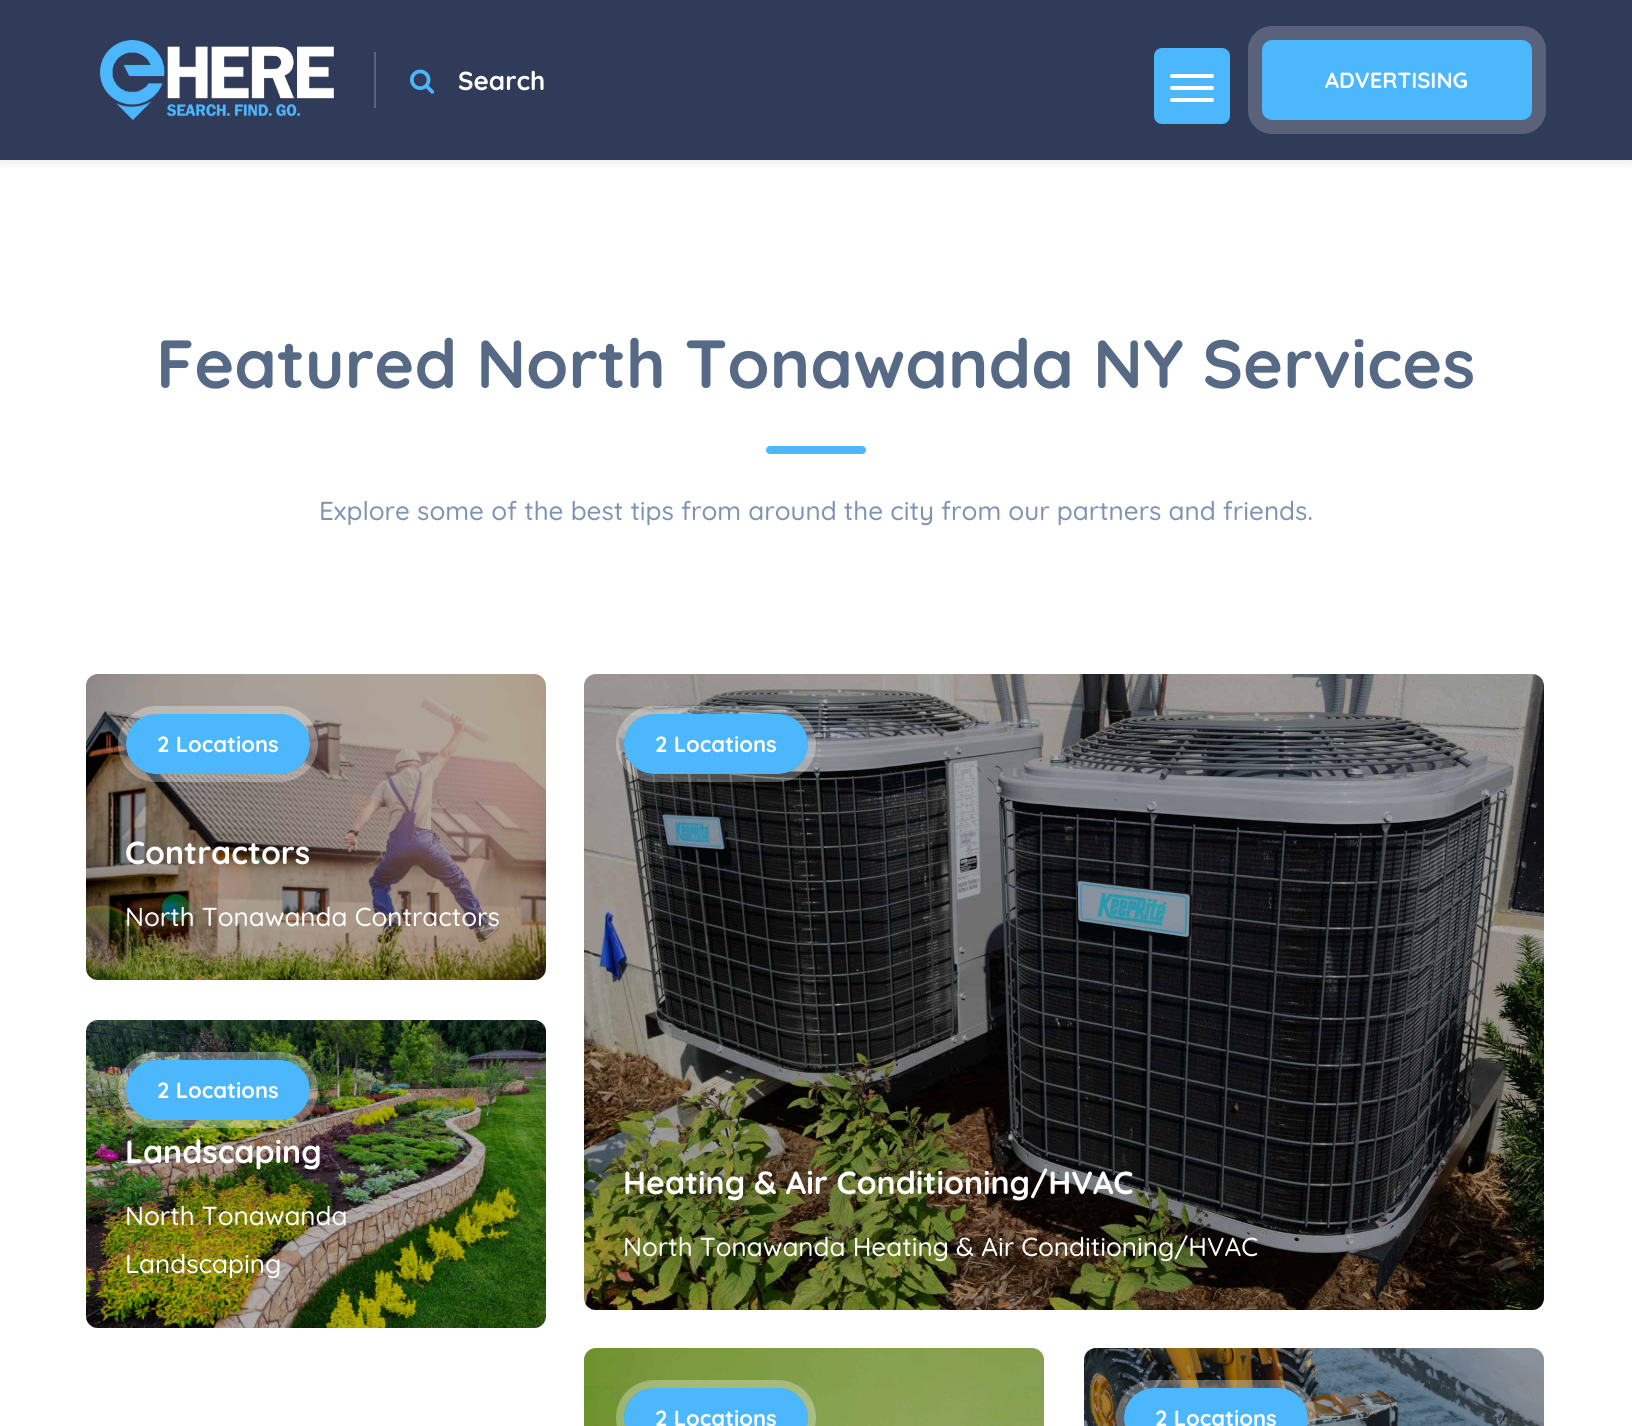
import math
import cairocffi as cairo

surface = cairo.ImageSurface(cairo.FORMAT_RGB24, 1632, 1426)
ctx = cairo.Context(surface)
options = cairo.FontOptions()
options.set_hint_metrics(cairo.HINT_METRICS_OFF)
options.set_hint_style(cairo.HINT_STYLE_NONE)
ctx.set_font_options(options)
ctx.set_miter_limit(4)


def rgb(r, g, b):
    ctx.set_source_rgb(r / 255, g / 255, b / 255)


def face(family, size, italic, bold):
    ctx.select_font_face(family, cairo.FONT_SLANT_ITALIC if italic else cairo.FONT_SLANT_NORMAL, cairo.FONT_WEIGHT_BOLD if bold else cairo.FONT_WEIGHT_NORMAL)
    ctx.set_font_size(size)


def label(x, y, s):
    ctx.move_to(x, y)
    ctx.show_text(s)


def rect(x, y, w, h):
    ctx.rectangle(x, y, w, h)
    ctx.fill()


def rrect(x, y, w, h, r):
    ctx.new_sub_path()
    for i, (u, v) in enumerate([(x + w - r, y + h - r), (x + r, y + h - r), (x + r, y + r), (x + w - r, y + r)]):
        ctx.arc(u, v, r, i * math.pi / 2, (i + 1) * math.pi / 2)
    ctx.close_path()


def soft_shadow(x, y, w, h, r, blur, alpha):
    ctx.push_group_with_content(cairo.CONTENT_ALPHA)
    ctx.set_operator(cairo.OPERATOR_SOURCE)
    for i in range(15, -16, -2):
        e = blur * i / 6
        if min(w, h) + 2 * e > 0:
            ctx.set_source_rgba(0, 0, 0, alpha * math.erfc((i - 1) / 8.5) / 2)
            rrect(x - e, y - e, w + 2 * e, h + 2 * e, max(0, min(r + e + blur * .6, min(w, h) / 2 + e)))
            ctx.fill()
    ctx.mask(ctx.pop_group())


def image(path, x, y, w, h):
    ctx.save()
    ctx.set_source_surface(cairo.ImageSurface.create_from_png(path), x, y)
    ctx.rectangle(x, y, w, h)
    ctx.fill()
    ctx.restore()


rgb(47, 59, 89)
ctx.paint()
rgb(255, 255, 255)
rect(0, 160, 1632, 1266)
ctx.save()
ctx.rectangle(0, 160, 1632, 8)
ctx.clip()
rgb(0, 0, 0)
soft_shadow(0, 0, 1632, 160, 0, 8, 0.12)
ctx.restore()
image('image0.png', 100, 40, 234, 80)
rgb(91, 100, 124)
rect(374, 52, 2, 56)
image('image1.png', 410, 69, 25, 25)
face('Quicksand', 26, 0, 1)
rgb(255, 255, 255)
label(458, 90, 'Search')
rgb(77, 183, 254)
rrect(1154, 48, 76, 76, 8)
ctx.fill()
rgb(255, 255, 255)
rrect(1170, 74, 44, 4, 2)
ctx.fill()
rrect(1170, 86, 44, 4, 2)
ctx.fill()
rrect(1170, 98, 44, 4, 2)
ctx.fill()
rrect(1255, 33, 284, 94, 17)
rgb(89, 98, 122)
ctx.set_line_width(14)
ctx.stroke()
rgb(77, 183, 254)
rrect(1262, 40, 270, 80, 10)
ctx.fill()
face('Quicksand', 22, 0, 1)
rgb(255, 255, 255)
label(1325, 88, 'ADVERTISING')
face('Quicksand', 68, 0, 1)
rgb(86, 105, 133)
label(156, 388, 'Featured North Tonawanda NY Services')
rgb(77, 183, 254)
rrect(766, 446, 100, 8, 4)
ctx.fill()
face('Quicksand Medium', 26, 0, 0)
rgb(125, 147, 178)
label(319, 520, 'Explore some of the best tips from around the city from our partners and friends.')
image('image2.png', 86, 674, 460, 306)
ctx.set_source_rgba(0, 0, 0, 0.31)
rrect(86, 674, 460, 306, 12)
ctx.fill()
rrect(122, 710, 192, 68, 34)
ctx.set_source_rgba(1, 1, 1, 0.3)
ctx.set_line_width(8)
ctx.stroke()
rgb(77, 183, 254)
rrect(126, 714, 184, 60, 30)
ctx.fill()
face('Quicksand', 22, 0, 1)
rgb(255, 255, 255)
label(157, 752, '2 Locations')
face('Quicksand', 32, 0, 1)
label(125, 864, 'Contractors')
face('Quicksand Medium', 26, 0, 0)
label(125, 926, 'North Tonawanda Contractors')
image('image3.png', 584, 674, 960, 636)
ctx.set_source_rgba(0, 0, 0, 0.31)
rrect(584, 674, 960, 636, 12)
ctx.fill()
rrect(620, 710, 192, 68, 34)
ctx.set_source_rgba(1, 1, 1, 0.3)
ctx.stroke()
rgb(77, 183, 254)
rrect(624, 714, 184, 60, 30)
ctx.fill()
face('Quicksand', 22, 0, 1)
rgb(255, 255, 255)
label(655, 752, '2 Locations')
face('Quicksand', 32, 0, 1)
label(623, 1194, 'Heating & Air Conditioning/HVAC')
face('Quicksand Medium', 26, 0, 0)
label(623, 1256, 'North Tonawanda Heating & Air Conditioning/HVAC')
image('image4.png', 86, 1020, 460, 308)
ctx.set_source_rgba(0, 0, 0, 0.31)
rrect(86, 1020, 460, 308, 12)
ctx.fill()
rrect(122, 1056, 192, 68, 34)
ctx.set_source_rgba(1, 1, 1, 0.3)
ctx.stroke()
rgb(77, 183, 254)
rrect(126, 1060, 184, 60, 30)
ctx.fill()
face('Quicksand', 22, 0, 1)
rgb(255, 255, 255)
label(157, 1098, '2 Locations')
face('Quicksand', 32, 0, 1)
label(125, 1163, 'Landscaping')
face('Quicksand Medium', 26, 0, 0)
label(125, 1225, 'North Tonawanda')
label(125, 1273, 'Landscaping')
image('image5.png', 584, 1348, 460, 78)
ctx.set_source_rgba(0, 0, 0, 0.31)
rrect(584, 1348, 460, 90, 12)
ctx.fill()
rrect(620, 1384, 192, 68, 34)
ctx.set_source_rgba(1, 1, 1, 0.3)
ctx.stroke()
rgb(77, 183, 254)
rrect(624, 1388, 184, 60, 30)
ctx.fill()
face('Quicksand', 22, 0, 1)
rgb(255, 255, 255)
label(655, 1426, '2 Locations')
image('image6.png', 1084, 1348, 460, 78)
ctx.set_source_rgba(0, 0, 0, 0.31)
rrect(1084, 1348, 460, 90, 12)
ctx.fill()
rrect(1120, 1384, 192, 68, 34)
ctx.set_source_rgba(1, 1, 1, 0.3)
ctx.stroke()
rgb(77, 183, 254)
rrect(1124, 1388, 184, 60, 30)
ctx.fill()
rgb(255, 255, 255)
label(1155, 1426, '2 Locations')
surface.write_to_png('render.png')
